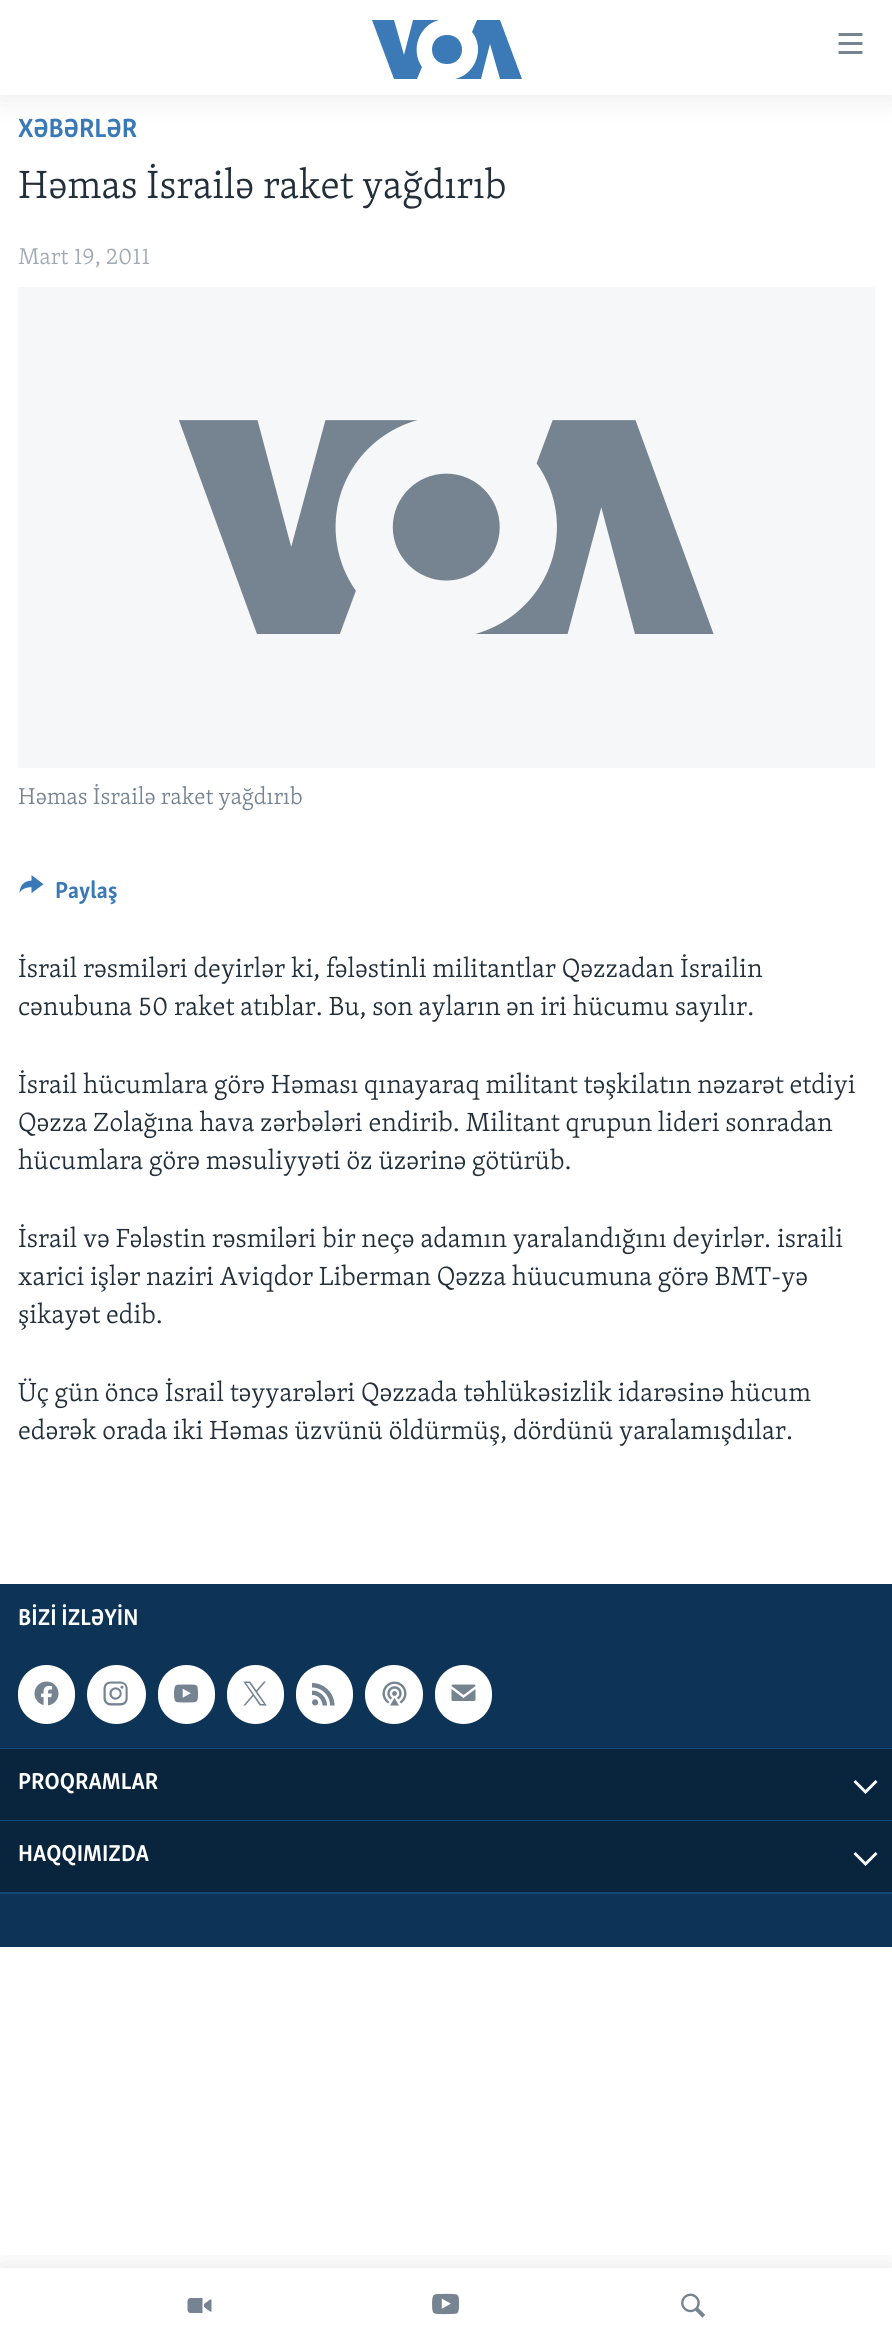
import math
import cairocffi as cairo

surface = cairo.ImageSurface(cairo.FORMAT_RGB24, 892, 2342)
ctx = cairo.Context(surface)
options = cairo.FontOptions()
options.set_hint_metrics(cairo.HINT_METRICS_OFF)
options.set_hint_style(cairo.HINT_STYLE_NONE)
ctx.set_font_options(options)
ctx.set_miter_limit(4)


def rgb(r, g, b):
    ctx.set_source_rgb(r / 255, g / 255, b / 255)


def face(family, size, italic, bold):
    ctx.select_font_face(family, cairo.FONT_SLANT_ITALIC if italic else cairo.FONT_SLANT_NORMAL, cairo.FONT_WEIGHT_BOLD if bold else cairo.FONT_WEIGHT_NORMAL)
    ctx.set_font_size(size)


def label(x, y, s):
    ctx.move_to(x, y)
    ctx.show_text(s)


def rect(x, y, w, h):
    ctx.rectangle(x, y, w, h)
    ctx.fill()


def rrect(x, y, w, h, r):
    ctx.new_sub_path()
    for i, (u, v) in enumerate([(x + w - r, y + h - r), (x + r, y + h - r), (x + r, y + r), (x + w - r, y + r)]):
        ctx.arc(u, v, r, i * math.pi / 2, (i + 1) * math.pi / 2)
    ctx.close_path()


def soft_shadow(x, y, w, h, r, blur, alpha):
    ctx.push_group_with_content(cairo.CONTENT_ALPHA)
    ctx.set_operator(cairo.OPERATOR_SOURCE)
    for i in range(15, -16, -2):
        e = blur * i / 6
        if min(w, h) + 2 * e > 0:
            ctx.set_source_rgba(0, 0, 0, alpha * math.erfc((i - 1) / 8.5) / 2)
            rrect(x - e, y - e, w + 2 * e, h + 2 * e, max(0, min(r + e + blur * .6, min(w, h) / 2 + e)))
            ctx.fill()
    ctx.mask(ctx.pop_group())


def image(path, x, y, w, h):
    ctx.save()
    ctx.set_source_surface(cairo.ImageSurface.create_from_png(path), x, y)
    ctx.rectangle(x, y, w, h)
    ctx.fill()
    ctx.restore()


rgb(255, 255, 255)
ctx.paint()
rgb(0, 0, 0)
soft_shadow(0, 0, 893, 95, 0, 15, 0.1)
rgb(255, 255, 255)
rect(0, 0, 892, 95)
rgb(59, 121, 183)
ctx.new_path()
ctx.move_to(422, 67)
ctx.line_to(417, 79)
ctx.line_to(394, 79)
ctx.line_to(372, 20)
ctx.line_to(394, 20)
ctx.line_to(404, 55)
ctx.line_to(413, 20)
ctx.line_to(439, 20)
ctx.curve_to(419, 25, 410, 50, 422, 67)
ctx.close_path()
ctx.move_to(447, 35)
ctx.curve_to(427, 35, 427, 64, 447, 64)
ctx.curve_to(467, 64, 467, 35, 447, 35)
ctx.close_path()
ctx.move_to(478, 49)
ctx.curve_to(478, 64, 468, 76, 455, 79)
ctx.line_to(481, 79)
ctx.line_to(490, 44)
ctx.line_to(500, 79)
ctx.line_to(522, 79)
ctx.line_to(500, 20)
ctx.line_to(477, 20)
ctx.line_to(472, 32)
ctx.curve_to(476, 37, 478, 43, 478, 49)
ctx.close_path()
ctx.fill()
image('image0.png', 838, 33, 25, 21)
ctx.save()
ctx.rectangle(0, 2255, 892, 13)
ctx.clip()
rgb(0, 0, 0)
soft_shadow(0, 2268, 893, 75, 0, 15, 0.1)
ctx.restore()
image('image1.png', 187, 2298, 25, 15)
image('image2.png', 432, 2293, 27, 22)
image('image3.png', 681, 2293, 24, 25)
face('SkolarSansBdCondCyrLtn', 27, 0, 1)
rgb(58, 121, 183)
label(18, 137, 'XƏBƏRLƏR')
face('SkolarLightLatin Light', 40.5, 0, 0)
rgb(34, 47, 58)
label(18, 198, 'Həmas İsrailə raket yağdırıb')
face('SkolarLightLatin Light', 23.6, 0, 0)
rgb(161, 170, 180)
label(18, 264, 'Mart 19, 2011')
rgb(246, 247, 248)
rect(18, 287, 857, 481)
image('image4.png', 179, 420, 535, 214)
rgb(118, 132, 146)
label(18, 804, 'Həmas İsrailə raket yağdırıb')
image('image5.png', 19, 875, 25, 18)
face('SkolarSansBdCondCyrLtn', 23.6, 0, 1)
rgb(58, 121, 183)
label(55, 898, 'Paylaş')
face('SkolarLightLatin Light', 27, 0, 0)
rgb(34, 47, 58)
label(18, 977, 'İsrail rəsmiləri deyirlər ki, fələstinli militantlar Qəzzadan İsrailin')
label(18, 1015, 'cənubuna 50 raket atıblar. Bu, son ayların ən iri hücumu sayılır.')
label(18, 1093, 'İsrail hücumlara görə Həması qınayaraq militant təşkilatın nəzarət etdiyi')
label(18, 1131, 'Qəzza Zolağına hava zərbələri endirib. Militant qrupun lideri sonradan')
label(18, 1169, 'hücumlara görə məsuliyyəti öz üzərinə götürüb.')
label(18, 1247, 'İsrail və Fələstin rəsmiləri bir neçə adamın yaralandığını deyirlər. israili')
label(18, 1285, 'xarici işlər naziri Aviqdor Liberman Qəzza hüucumuna görə BMT-yə')
label(18, 1323, 'şikayət edib.')
label(18, 1401, 'Üç gün öncə İsrail təyyarələri Qəzzada təhlükəsizlik idarəsinə hücum')
label(18, 1439, 'edərək orada iki Həmas üzvünü öldürmüş, dördünü yaralamışdılar.')
rgb(13, 52, 86)
rect(0, 1584, 892, 363)
rgb(19, 73, 118)
rect(0, 1892, 892, 2)
face('SkolarSansBdCondCyrLtn', 23.6, 0, 1)
rgb(255, 255, 255)
label(18, 1625, 'BİZİ İZLƏYİN')
rrect(18, 1665, 57, 59, 28.5)
ctx.fill()
image('image6.png', 34, 1681, 25, 25)
ctx.arc(116.5, 1694.5, 29.5, 0, 2 * math.pi)
ctx.fill()
image('image7.png', 103, 1681, 25, 25)
rrect(158, 1665, 57, 59, 28.5)
ctx.fill()
image('image8.png', 174, 1684, 24, 19)
rrect(227, 1665, 57, 59, 28.5)
ctx.fill()
image('image9.png', 243, 1681, 24, 25)
rrect(296, 1665, 57, 59, 28.5)
ctx.fill()
image('image10.png', 312, 1683, 23, 23)
rrect(365, 1665, 58, 59, 29)
ctx.fill()
image('image11.png', 382, 1681, 25, 25)
rrect(435, 1665, 57, 59, 28.5)
ctx.fill()
image('image12.png', 451, 1684, 25, 17)
rgb(19, 73, 118)
rect(0, 1748, 892, 1)
rgb(9, 36, 61)
rect(0, 1749, 892, 71)
rgb(255, 255, 255)
label(18, 1789, 'PROQRAMLAR')
ctx.new_path()
ctx.move_to(853.5, 1782)
ctx.line_to(865.5, 1794)
ctx.line_to(877.5, 1782)
ctx.line_to(875.5, 1780)
ctx.line_to(865.5, 1790)
ctx.line_to(855.5, 1780)
ctx.close_path()
ctx.fill()
rgb(19, 73, 118)
rect(0, 1820, 892, 1)
rgb(9, 36, 61)
rect(0, 1821, 892, 71)
rgb(255, 255, 255)
label(18, 1861, 'HAQQIMIZDA')
ctx.new_path()
ctx.move_to(853.5, 1854)
ctx.line_to(865.5, 1866)
ctx.line_to(877.5, 1854)
ctx.line_to(875.5, 1852)
ctx.line_to(865.5, 1862)
ctx.line_to(855.5, 1852)
ctx.close_path()
ctx.fill()
surface.write_to_png('render.png')
